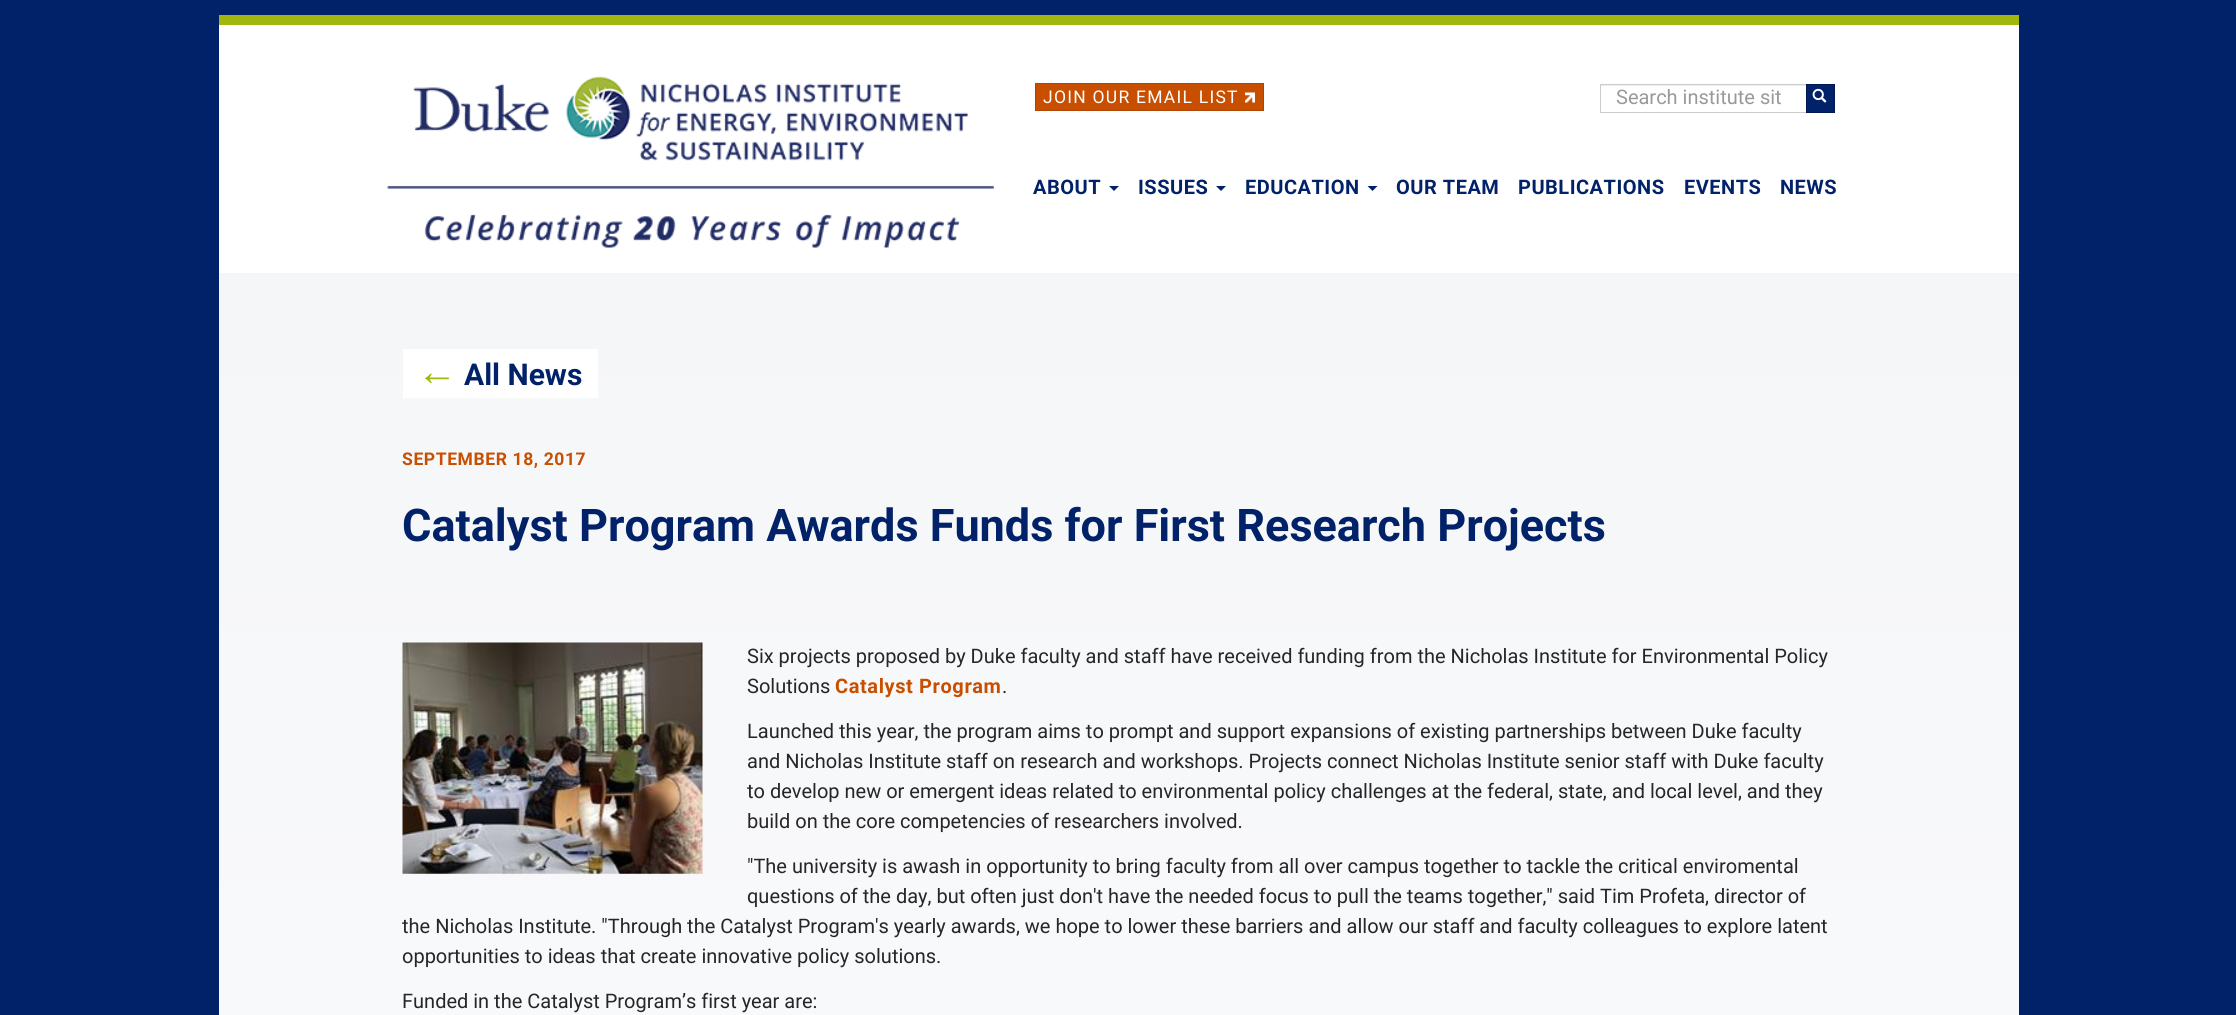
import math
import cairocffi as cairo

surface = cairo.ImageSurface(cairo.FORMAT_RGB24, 2236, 1015)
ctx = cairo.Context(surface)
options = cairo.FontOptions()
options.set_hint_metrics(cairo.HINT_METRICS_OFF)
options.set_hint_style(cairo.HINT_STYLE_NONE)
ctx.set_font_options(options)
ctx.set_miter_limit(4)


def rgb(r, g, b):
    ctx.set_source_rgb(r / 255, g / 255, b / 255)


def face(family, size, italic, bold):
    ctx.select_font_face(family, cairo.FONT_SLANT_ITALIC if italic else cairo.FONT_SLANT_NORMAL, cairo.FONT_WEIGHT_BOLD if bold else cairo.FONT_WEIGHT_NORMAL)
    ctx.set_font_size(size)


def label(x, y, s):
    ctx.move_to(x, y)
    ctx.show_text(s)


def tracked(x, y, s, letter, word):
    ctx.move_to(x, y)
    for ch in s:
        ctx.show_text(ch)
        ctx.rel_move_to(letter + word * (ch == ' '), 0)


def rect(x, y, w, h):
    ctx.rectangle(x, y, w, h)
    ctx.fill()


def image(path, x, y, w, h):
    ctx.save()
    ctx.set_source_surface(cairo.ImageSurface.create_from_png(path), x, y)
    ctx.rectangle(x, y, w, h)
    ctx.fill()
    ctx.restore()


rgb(1, 33, 105)
ctx.paint()
rgb(255, 255, 255)
rect(219, 25, 1800, 248)
rgb(161, 183, 13)
rect(219, 15, 1800, 10)
image('image0.png', 387, 76, 607, 172)
rgb(200, 78, 0)
ctx.rectangle(1035.5, 83.5, 228, 27)
ctx.fill_preserve()
rgb(175, 68, 0)
ctx.set_line_width(1)
ctx.stroke()
face('Roboto', 17.5, 0, 0)
rgb(255, 255, 255)
tracked(1043, 103, 'JOIN OUR EMAIL LIST', 1.25, 0)
image('image1.png', 1245, 92, 10, 11)
rgb(236, 236, 236)
rect(1601, 85, 205, 1)
ctx.rectangle(1600.5, 84.5, 207, 28)
rgb(204, 204, 204)
ctx.stroke()
face('Roboto', 20, 0, 0)
rgb(153, 153, 153)
label(1616, 104, 'Search institute sit')
rgb(1, 33, 105)
ctx.rectangle(1806.5, 84.5, 28, 28)
ctx.fill_preserve()
rgb(1, 25, 80)
ctx.stroke()
image('image2.png', 1812, 88, 15, 15)
face('Roboto', 20, 0, 1)
rgb(1, 33, 105)
tracked(1033, 194, 'ABOUT', 0.5, 0)
ctx.new_path()
ctx.move_to(1109, 186)
ctx.line_to(1119, 186)
ctx.line_to(1114, 191)
ctx.close_path()
ctx.fill()
tracked(1138, 194, 'ISSUES', 0.5, 0)
ctx.new_path()
ctx.move_to(1216, 186)
ctx.line_to(1226, 186)
ctx.line_to(1221, 191)
ctx.close_path()
ctx.fill()
tracked(1245, 194, 'EDUCATION', 0.5, 0)
ctx.new_path()
ctx.move_to(1367.5, 186)
ctx.line_to(1377.5, 186)
ctx.line_to(1372.5, 191)
ctx.close_path()
ctx.fill()
tracked(1396, 194, 'OUR TEAM', 0.5, 0)
tracked(1518, 194, 'PUBLICATIONS', 0.5, 0)
tracked(1684, 194, 'EVENTS', 0.5, 0)
tracked(1780, 194, 'NEWS', 0.5, 0)
gradient = cairo.LinearGradient(1119, 271, 1119, 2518)
gradient.add_color_stop_rgba(0, 0.961, 0.965, 0.973, 1)
gradient.add_color_stop_rgba(1, 1, 1, 1, 1)
ctx.set_source(gradient)
rect(219, 273, 1800, 742)
rgb(255, 255, 255)
rect(403, 349, 195, 49)
face('Liberation Sans', 40, 0, 1)
rgb(161, 183, 13)
label(417, 385, '←')
face('Roboto', 30, 0, 1)
rgb(1, 33, 105)
label(464, 385, 'All News')
face('Roboto', 17.5, 0, 1)
rgb(200, 78, 0)
tracked(402, 465, 'SEPTEMBER 18, 2017', 0.6, 0)
face('Roboto', 45, 0, 1)
rgb(1, 33, 105)
label(402, 541, 'Catalyst Program Awards Funds for First Research Projects')
image('image3.png', 402, 642, 301, 232)
face('Roboto', 20, 0, 0)
rgb(38, 38, 38)
label(747, 663, 'Six projects proposed by Duke faculty and staff have received funding from the Nicholas Institute for Environmental Policy')
label(747, 693, 'Solutions')
face('Roboto', 20, 0, 1)
rgb(200, 78, 0)
tracked(835, 693, 'Catalyst Program', 0.6, 0)
face('Roboto', 20, 0, 0)
rgb(38, 38, 38)
label(1002, 693, '.')
label(747, 738, 'Launched this year, the program aims to prompt and support expansions of existing partnerships between Duke faculty')
label(747, 768, 'and Nicholas Institute staff on research and workshops. Projects connect Nicholas Institute senior staff with Duke faculty')
label(747, 798, 'to develop new or emergent ideas related to environmental policy challenges at the federal, state, and local level, and they')
label(747, 828, 'build on the core competencies of researchers involved.')
label(747, 873, '"The university is awash in opportunity to bring faculty from all over campus together to tackle the critical enviromental')
label(747, 903, 'questions of the day, but often just don\'t have the needed focus to pull the teams together," said Tim Profeta, director of')
label(402, 933, 'the Nicholas Institute. "Through the Catalyst Program\'s yearly awards, we hope to lower these barriers and allow our staff and faculty colleagues to explore latent')
label(402, 963, 'opportunities to ideas that create innovative policy solutions.')
label(402, 1008, 'Funded in the Catalyst Program’s first year are:')
surface.write_to_png('render.png')
